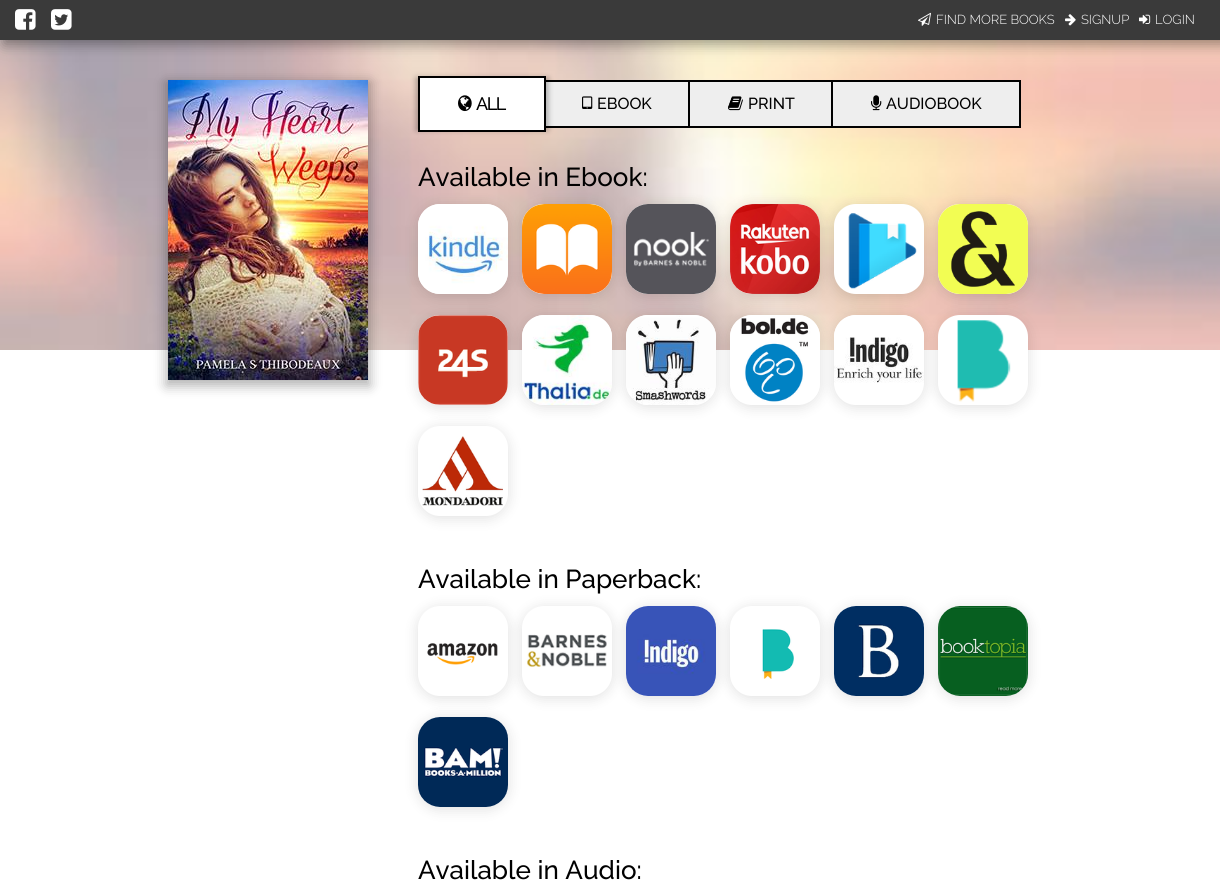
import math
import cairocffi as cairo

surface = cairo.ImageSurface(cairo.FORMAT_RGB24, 1220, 882)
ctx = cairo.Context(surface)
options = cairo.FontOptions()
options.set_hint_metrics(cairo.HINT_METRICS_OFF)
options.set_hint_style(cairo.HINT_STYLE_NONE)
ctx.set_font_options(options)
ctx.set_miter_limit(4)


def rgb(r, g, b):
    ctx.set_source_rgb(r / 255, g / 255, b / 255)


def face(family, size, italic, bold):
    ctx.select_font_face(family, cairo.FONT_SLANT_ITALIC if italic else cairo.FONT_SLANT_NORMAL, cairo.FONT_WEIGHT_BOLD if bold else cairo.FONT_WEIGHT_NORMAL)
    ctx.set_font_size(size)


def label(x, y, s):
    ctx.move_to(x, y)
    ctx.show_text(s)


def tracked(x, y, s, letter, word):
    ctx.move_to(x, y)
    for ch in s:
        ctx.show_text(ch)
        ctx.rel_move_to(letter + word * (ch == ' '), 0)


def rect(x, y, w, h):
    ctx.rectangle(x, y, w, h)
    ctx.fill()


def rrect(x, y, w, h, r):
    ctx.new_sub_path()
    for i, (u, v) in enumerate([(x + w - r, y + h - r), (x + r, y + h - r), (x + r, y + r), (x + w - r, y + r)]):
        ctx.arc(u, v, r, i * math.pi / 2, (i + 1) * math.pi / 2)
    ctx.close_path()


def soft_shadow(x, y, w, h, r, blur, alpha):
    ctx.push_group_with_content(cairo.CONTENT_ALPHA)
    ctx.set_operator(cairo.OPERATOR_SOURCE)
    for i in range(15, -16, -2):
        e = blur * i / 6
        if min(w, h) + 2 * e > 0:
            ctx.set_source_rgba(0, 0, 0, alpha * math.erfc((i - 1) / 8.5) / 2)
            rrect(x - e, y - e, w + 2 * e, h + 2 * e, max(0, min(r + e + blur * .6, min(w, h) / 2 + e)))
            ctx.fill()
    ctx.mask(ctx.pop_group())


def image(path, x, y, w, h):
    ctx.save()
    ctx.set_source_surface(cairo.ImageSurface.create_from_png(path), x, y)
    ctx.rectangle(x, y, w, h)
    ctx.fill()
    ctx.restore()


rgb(255, 255, 255)
ctx.paint()
image('image0.png', 0, 40, 1220, 310)
rgb(0, 0, 0)
soft_shadow(4, 4, 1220, 40, 0, 7, 0.4)
rgb(58, 58, 58)
rect(0, 0, 1220, 40)
image('image1.png', 15, 9, 21, 21)
image('image2.png', 51, 9, 21, 21)
image('image3.png', 918, 12, 13, 14)
face('Raleway Light', 13, 0, 0)
rgb(255, 255, 255)
label(936, 24, 'FIND MORE BOOKS')
image('image4.png', 1065, 14, 11, 12)
label(1081, 24, 'SIGNUP')
image('image5.png', 1139, 14, 12, 10)
label(1155, 24, 'LOGIN')
rgb(0, 0, 0)
soft_shadow(166, 82, 204, 304, 0, 6, 0.3)
image('image6.png', 168, 80, 200, 300)
rgb(238, 238, 238)
rect(546, 82, 142, 44)
ctx.rectangle(543, 81, 148, 46)
rgb(0, 0, 0)
ctx.stroke()
rgb(0, 0, 0)
soft_shadow(416, 78, 132, 52, 0, 3, 0.3)
rgb(255, 255, 255)
ctx.rectangle(419, 77, 126, 54)
ctx.fill_preserve()
rgb(0, 0, 0)
ctx.stroke()
image('image7.png', 458, 95, 14, 17)
face('Raleway Medium', 18, 0, 0)
tracked(476, 110, 'ALL', -1.5, 0)
image('image8.png', 582, 96, 11, 13)
face('Raleway Medium', 16, 0, 0)
label(597, 109, 'EBOOK')
rgb(238, 238, 238)
rect(690, 82, 141, 44)
ctx.rectangle(689, 81, 145, 46)
rgb(0, 0, 0)
ctx.stroke()
image('image9.png', 728, 96, 15, 15)
label(748, 109, 'PRINT')
rgb(238, 238, 238)
ctx.rectangle(832, 81, 188, 46)
ctx.fill_preserve()
rgb(0, 0, 0)
ctx.stroke()
image('image10.png', 871, 95, 11, 16)
label(886, 109, 'AUDIOBOOK')
rgb(0, 0, 0)
soft_shadow(416, 204, 94, 94, 24, 6, 0.1)
rgb(255, 255, 255)
rrect(418, 204, 90, 90, 22)
ctx.fill()
image('image11.png', 418, 204, 90, 90)
rgb(0, 0, 0)
soft_shadow(520, 204, 94, 94, 24, 6, 0.1)
rgb(255, 255, 255)
rrect(522, 204, 90, 90, 22)
ctx.fill()
image('image12.png', 522, 204, 90, 90)
rgb(0, 0, 0)
soft_shadow(624, 204, 94, 94, 24, 6, 0.1)
face('Raleway Medium', 26, 0, 0)
rgb(0, 0, 0)
label(418, 186, 'Available in Ebook:')
rgb(255, 255, 255)
rrect(626, 204, 90, 90, 22)
ctx.fill()
image('image13.png', 626, 204, 90, 90)
rgb(0, 0, 0)
soft_shadow(728, 204, 94, 94, 24, 6, 0.1)
rgb(255, 255, 255)
rrect(730, 204, 90, 90, 22)
ctx.fill()
image('image14.png', 730, 204, 90, 90)
rgb(0, 0, 0)
soft_shadow(832, 204, 94, 94, 24, 6, 0.1)
rgb(255, 255, 255)
rrect(834, 204, 90, 90, 22)
ctx.fill()
rgb(0, 0, 0)
soft_shadow(936, 204, 94, 94, 24, 6, 0.1)
rgb(255, 255, 255)
rrect(938, 204, 90, 90, 22)
ctx.fill()
image('image15.png', 848, 213, 69, 76)
image('image16.png', 938, 204, 90, 90)
rgb(0, 0, 0)
soft_shadow(416, 315, 94, 94, 24, 6, 0.1)
rgb(255, 255, 255)
rrect(418, 315, 90, 90, 22)
ctx.fill()
image('image17.png', 418, 315, 90, 90)
rgb(0, 0, 0)
soft_shadow(520, 315, 94, 94, 24, 6, 0.1)
rgb(255, 255, 255)
rrect(522, 315, 90, 90, 22)
ctx.fill()
image('image18.png', 522, 315, 90, 90)
rgb(0, 0, 0)
soft_shadow(624, 315, 94, 94, 24, 6, 0.1)
rgb(255, 255, 255)
rrect(626, 315, 90, 90, 22)
ctx.fill()
image('image19.png', 626, 315, 90, 90)
rgb(0, 0, 0)
soft_shadow(728, 315, 94, 94, 24, 6, 0.1)
rgb(255, 255, 255)
rrect(730, 315, 90, 90, 22)
ctx.fill()
image('image20.png', 730, 315, 90, 87)
rgb(0, 0, 0)
soft_shadow(832, 315, 94, 94, 24, 6, 0.1)
rgb(255, 255, 255)
rrect(834, 315, 90, 90, 22)
ctx.fill()
image('image21.png', 834, 315, 90, 68)
rgb(0, 0, 0)
soft_shadow(936, 315, 94, 94, 24, 6, 0.1)
rgb(255, 255, 255)
rrect(938, 315, 90, 90, 22)
ctx.fill()
image('image22.png', 957, 320, 54, 82)
rgb(0, 0, 0)
soft_shadow(416, 426, 94, 94, 24, 6, 0.1)
rgb(255, 255, 255)
rrect(418, 426, 90, 90, 22)
ctx.fill()
image('image23.png', 422, 436, 81, 70)
rgb(0, 0, 0)
soft_shadow(416, 606, 94, 94, 24, 6, 0.1)
rgb(255, 255, 255)
rrect(418, 606, 90, 90, 22)
ctx.fill()
rgb(0, 0, 0)
soft_shadow(520, 606, 94, 94, 24, 6, 0.1)
rgb(255, 255, 255)
rrect(522, 606, 90, 90, 22)
ctx.fill()
image('image27.png', 527, 634, 80, 33)
rgb(0, 0, 0)
soft_shadow(624, 606, 94, 94, 24, 6, 0.1)
rgb(0, 0, 0)
label(418, 588, 'Available in Paperback:')
rgb(255, 255, 255)
rrect(626, 606, 90, 90, 22)
ctx.fill()
image('image24.png', 626, 606, 90, 90)
rgb(0, 0, 0)
soft_shadow(728, 606, 94, 94, 24, 6, 0.1)
rgb(255, 255, 255)
rrect(730, 606, 90, 90, 22)
ctx.fill()
rgb(0, 0, 0)
soft_shadow(832, 606, 94, 94, 24, 6, 0.1)
rgb(255, 255, 255)
rrect(834, 606, 90, 90, 22)
ctx.fill()
image('image25.png', 834, 606, 90, 90)
rgb(0, 0, 0)
soft_shadow(936, 606, 94, 94, 24, 6, 0.1)
rgb(255, 255, 255)
rrect(938, 606, 90, 90, 22)
ctx.fill()
image('image26.png', 427, 643, 71, 22)
image('image28.png', 762, 629, 32, 50)
image('image29.png', 938, 606, 90, 90)
rgb(0, 0, 0)
soft_shadow(416, 717, 94, 94, 24, 6, 0.1)
rgb(255, 255, 255)
rrect(418, 717, 90, 90, 22)
ctx.fill()
image('image30.png', 418, 717, 90, 90)
rgb(0, 0, 0)
label(418, 879, 'Available in Audio:')
surface.write_to_png('render.png')
